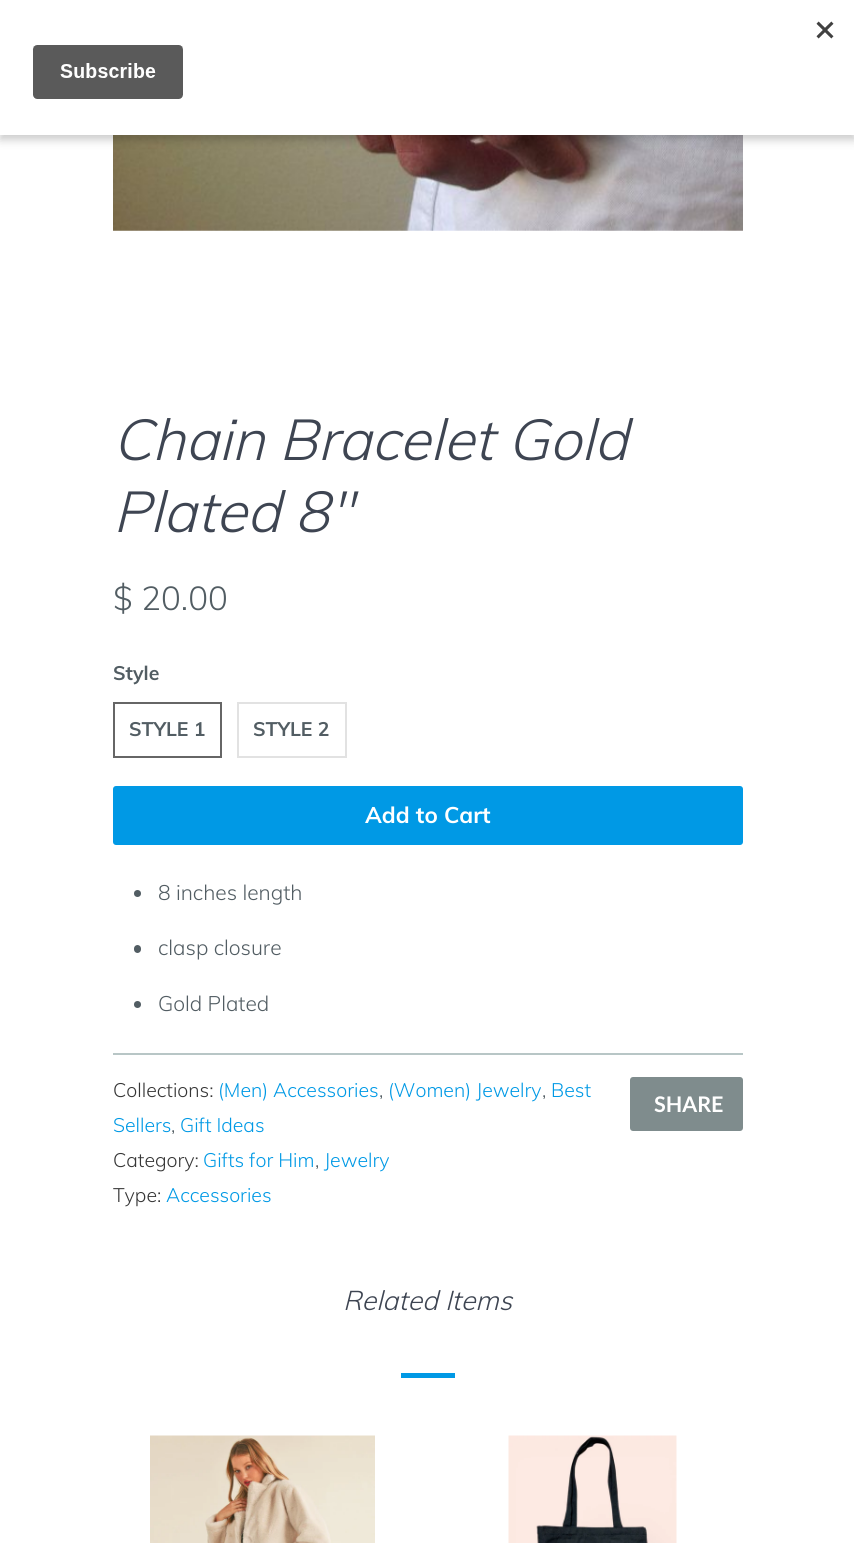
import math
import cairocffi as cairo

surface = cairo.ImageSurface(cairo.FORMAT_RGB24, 854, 1543)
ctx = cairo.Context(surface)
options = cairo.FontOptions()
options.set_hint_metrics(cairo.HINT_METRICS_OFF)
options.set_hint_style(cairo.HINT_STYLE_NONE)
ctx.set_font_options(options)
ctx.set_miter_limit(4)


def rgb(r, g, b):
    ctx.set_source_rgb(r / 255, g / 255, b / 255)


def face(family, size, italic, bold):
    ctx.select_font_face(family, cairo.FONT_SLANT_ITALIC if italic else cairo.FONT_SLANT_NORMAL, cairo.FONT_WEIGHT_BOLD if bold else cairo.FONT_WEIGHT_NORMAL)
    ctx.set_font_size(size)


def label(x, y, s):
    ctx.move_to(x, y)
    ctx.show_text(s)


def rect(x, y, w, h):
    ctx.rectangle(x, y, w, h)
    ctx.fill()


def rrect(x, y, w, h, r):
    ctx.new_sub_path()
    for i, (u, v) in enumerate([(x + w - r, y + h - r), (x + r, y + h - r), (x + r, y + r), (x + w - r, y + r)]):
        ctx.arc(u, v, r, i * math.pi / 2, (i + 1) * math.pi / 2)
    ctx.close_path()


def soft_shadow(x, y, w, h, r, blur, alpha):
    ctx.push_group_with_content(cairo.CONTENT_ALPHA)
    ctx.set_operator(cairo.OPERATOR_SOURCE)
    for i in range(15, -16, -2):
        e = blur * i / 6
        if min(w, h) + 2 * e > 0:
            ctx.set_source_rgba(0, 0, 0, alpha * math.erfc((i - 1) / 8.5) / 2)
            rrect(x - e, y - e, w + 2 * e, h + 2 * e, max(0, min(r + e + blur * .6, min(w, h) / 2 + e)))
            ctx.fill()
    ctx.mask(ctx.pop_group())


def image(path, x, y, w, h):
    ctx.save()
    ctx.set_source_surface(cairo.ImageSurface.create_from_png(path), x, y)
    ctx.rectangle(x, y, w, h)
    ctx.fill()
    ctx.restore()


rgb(255, 255, 255)
ctx.paint()
image('image1.png', 113, 135, 630, 96)
rgb(0, 0, 0)
soft_shadow(0, 5, 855, 135, 0, 4.5, 0.2)
rgb(255, 255, 255)
rect(0, 0, 854, 135)
image('image0.png', 32, 21, 802, 78)
face('Muli Light', 57, 1, 0)
rgb(62, 69, 82)
label(113, 460, 'Chain Bracelet Gold')
label(113, 532, 'Plated 8"')
face('Muli Light', 33, 0, 0)
rgb(82, 93, 99)
label(113, 610, '$ 20.00')
face('Muli', 19.5, 0, 1)
label(113, 680, 'Style')
ctx.rectangle(114, 703, 107, 54)
rgb(102, 102, 102)
ctx.stroke()
rgb(82, 93, 99)
label(129, 736, 'STYLE 1')
ctx.rectangle(238, 703, 108, 54)
rgb(226, 226, 226)
ctx.stroke()
rgb(82, 93, 99)
label(253, 736, 'STYLE 2')
rgb(0, 153, 229)
rrect(113, 786, 630, 59, 3)
ctx.fill()
face('Muli', 22.5, 0, 1)
rgb(255, 255, 255)
label(365, 823, 'Add to Cart')
rgb(82, 93, 99)
ctx.new_path()
ctx.arc(137.5, 893.5, 3.5, 0, 2 * math.pi)
ctx.fill()
face('Muli Light', 21, 0, 0)
label(158, 900, '8 inches length')
rrect(134, 945, 7, 8, 3.5)
ctx.fill()
label(158, 955, 'clasp closure')
ctx.new_path()
ctx.arc(137.5, 1004.5, 3.5, 0, 2 * math.pi)
ctx.fill()
label(158, 1011, 'Gold Plated')
rgb(184, 198, 198)
rect(113, 1053, 630, 2)
face('Muli Light', 19.5, 0, 0)
rgb(54, 54, 54)
label(113, 1097, 'Collections:')
rgb(0, 153, 229)
label(218, 1097, '(Men) Accessories')
rgb(82, 93, 99)
label(379, 1097, ',')
rgb(0, 153, 229)
label(388, 1097, '(Women) Jewelry')
rgb(82, 93, 99)
label(542, 1097, ',')
rgb(0, 153, 229)
label(551, 1097, 'Best')
label(113, 1132, 'Sellers')
rgb(82, 93, 99)
label(171, 1132, ',')
rgb(0, 153, 229)
label(180, 1132, 'Gift Ideas')
rgb(127, 140, 141)
rrect(630, 1077, 113, 54, 3)
ctx.fill()
face('Lato', 21.5, 0, 1)
rgb(255, 255, 255)
label(654, 1112, 'SHARE')
face('Muli Light', 19.5, 0, 0)
rgb(54, 54, 54)
label(113, 1167, 'Category:')
rgb(0, 153, 229)
label(203, 1167, 'Gifts for Him')
rgb(82, 93, 99)
label(315, 1167, ',')
rgb(0, 153, 229)
label(324, 1167, 'Jewelry')
rgb(54, 54, 54)
label(113, 1202, 'Type:')
rgb(0, 153, 229)
label(166, 1202, 'Accessories')
face('Muli Light', 27, 1, 0)
rgb(62, 69, 82)
label(343, 1310, 'Related Items')
rgb(0, 153, 229)
rect(401, 1373, 54, 5)
image('image2.png', 150, 1435, 225, 108)
image('image3.png', 508, 1435, 169, 108)
surface.write_to_png('render.png')
